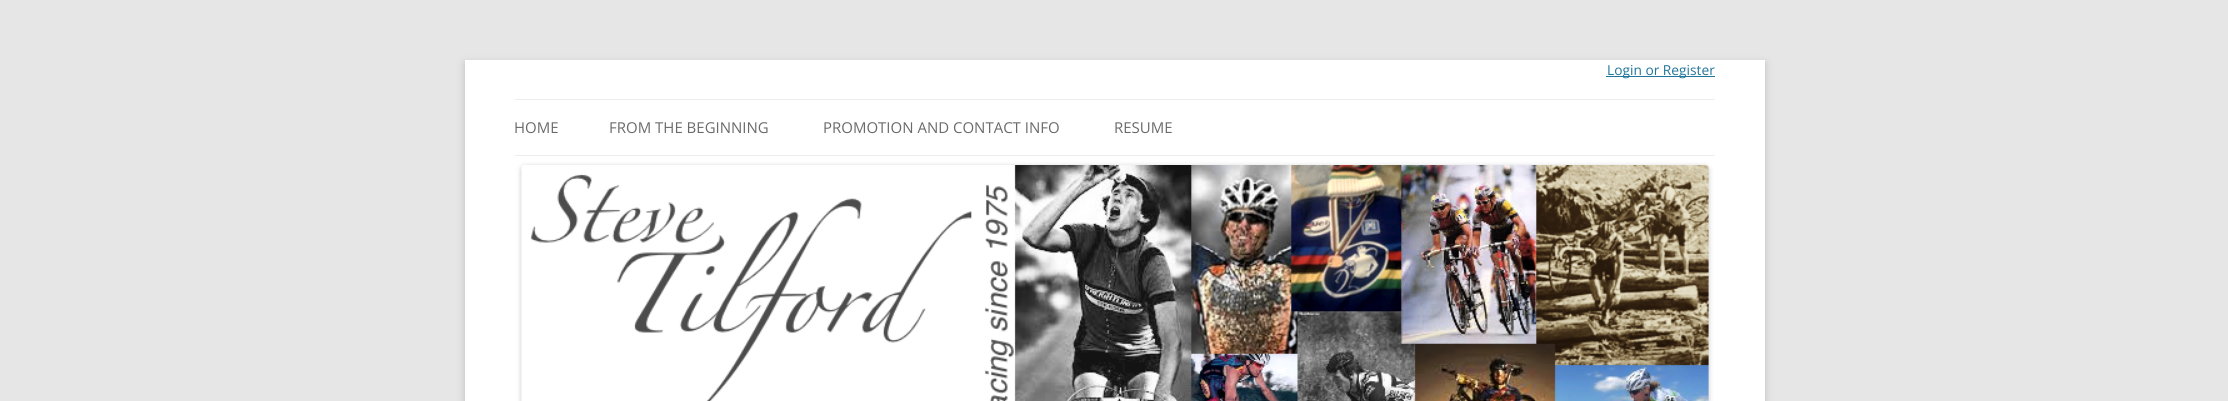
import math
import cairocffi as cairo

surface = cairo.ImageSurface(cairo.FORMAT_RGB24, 2228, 401)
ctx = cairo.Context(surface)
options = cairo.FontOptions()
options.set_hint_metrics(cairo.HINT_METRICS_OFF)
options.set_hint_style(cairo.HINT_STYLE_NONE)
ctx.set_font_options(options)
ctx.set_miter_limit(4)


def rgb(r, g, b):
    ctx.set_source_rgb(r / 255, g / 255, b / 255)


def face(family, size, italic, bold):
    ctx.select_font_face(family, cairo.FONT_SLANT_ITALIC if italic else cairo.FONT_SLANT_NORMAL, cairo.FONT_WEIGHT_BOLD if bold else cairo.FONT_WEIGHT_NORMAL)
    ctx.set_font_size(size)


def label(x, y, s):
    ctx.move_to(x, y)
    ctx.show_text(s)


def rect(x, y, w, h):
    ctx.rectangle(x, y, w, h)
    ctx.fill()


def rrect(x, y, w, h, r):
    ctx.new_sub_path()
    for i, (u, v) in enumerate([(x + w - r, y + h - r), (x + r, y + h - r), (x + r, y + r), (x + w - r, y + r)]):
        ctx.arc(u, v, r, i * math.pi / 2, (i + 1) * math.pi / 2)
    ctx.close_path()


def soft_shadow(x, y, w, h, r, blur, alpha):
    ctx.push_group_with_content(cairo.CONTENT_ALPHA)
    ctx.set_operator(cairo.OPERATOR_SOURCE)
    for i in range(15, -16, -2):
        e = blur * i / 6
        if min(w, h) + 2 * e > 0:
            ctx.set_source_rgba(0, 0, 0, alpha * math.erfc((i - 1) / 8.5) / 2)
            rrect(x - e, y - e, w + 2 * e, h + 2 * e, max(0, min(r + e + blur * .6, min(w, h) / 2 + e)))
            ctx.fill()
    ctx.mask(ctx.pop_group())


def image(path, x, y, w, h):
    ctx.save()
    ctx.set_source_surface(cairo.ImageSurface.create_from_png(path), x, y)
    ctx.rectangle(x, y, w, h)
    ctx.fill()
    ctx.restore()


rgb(230, 230, 230)
ctx.paint()
rgb(100, 100, 100)
soft_shadow(465, 63, 1300, 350, 0, 4, 0.3)
rgb(255, 255, 255)
rect(465, 60, 1300, 341)
rgb(33, 117, 155)
rect(1606, 76, 109, 1)
face('Open Sans', 13.75, 0, 0)
label(1607, 75, 'Login or Register')
rgb(237, 237, 237)
rect(515, 99, 1200, 1)
rect(515, 155, 1200, 1)
face('Open Sans', 15, 0, 0)
rgb(106, 106, 106)
label(514, 133, 'HOME')
label(609, 133, 'FROM THE BEGINNING')
label(823, 133, 'PROMOTION AND CONTACT INFO')
label(1114, 133, 'RESUME')
rgb(0, 0, 0)
soft_shadow(521, 166, 1188, 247, 4, 2.5, 0.2)
image('image0.png', 521, 165, 1188, 236)
surface.write_to_png('render.png')
